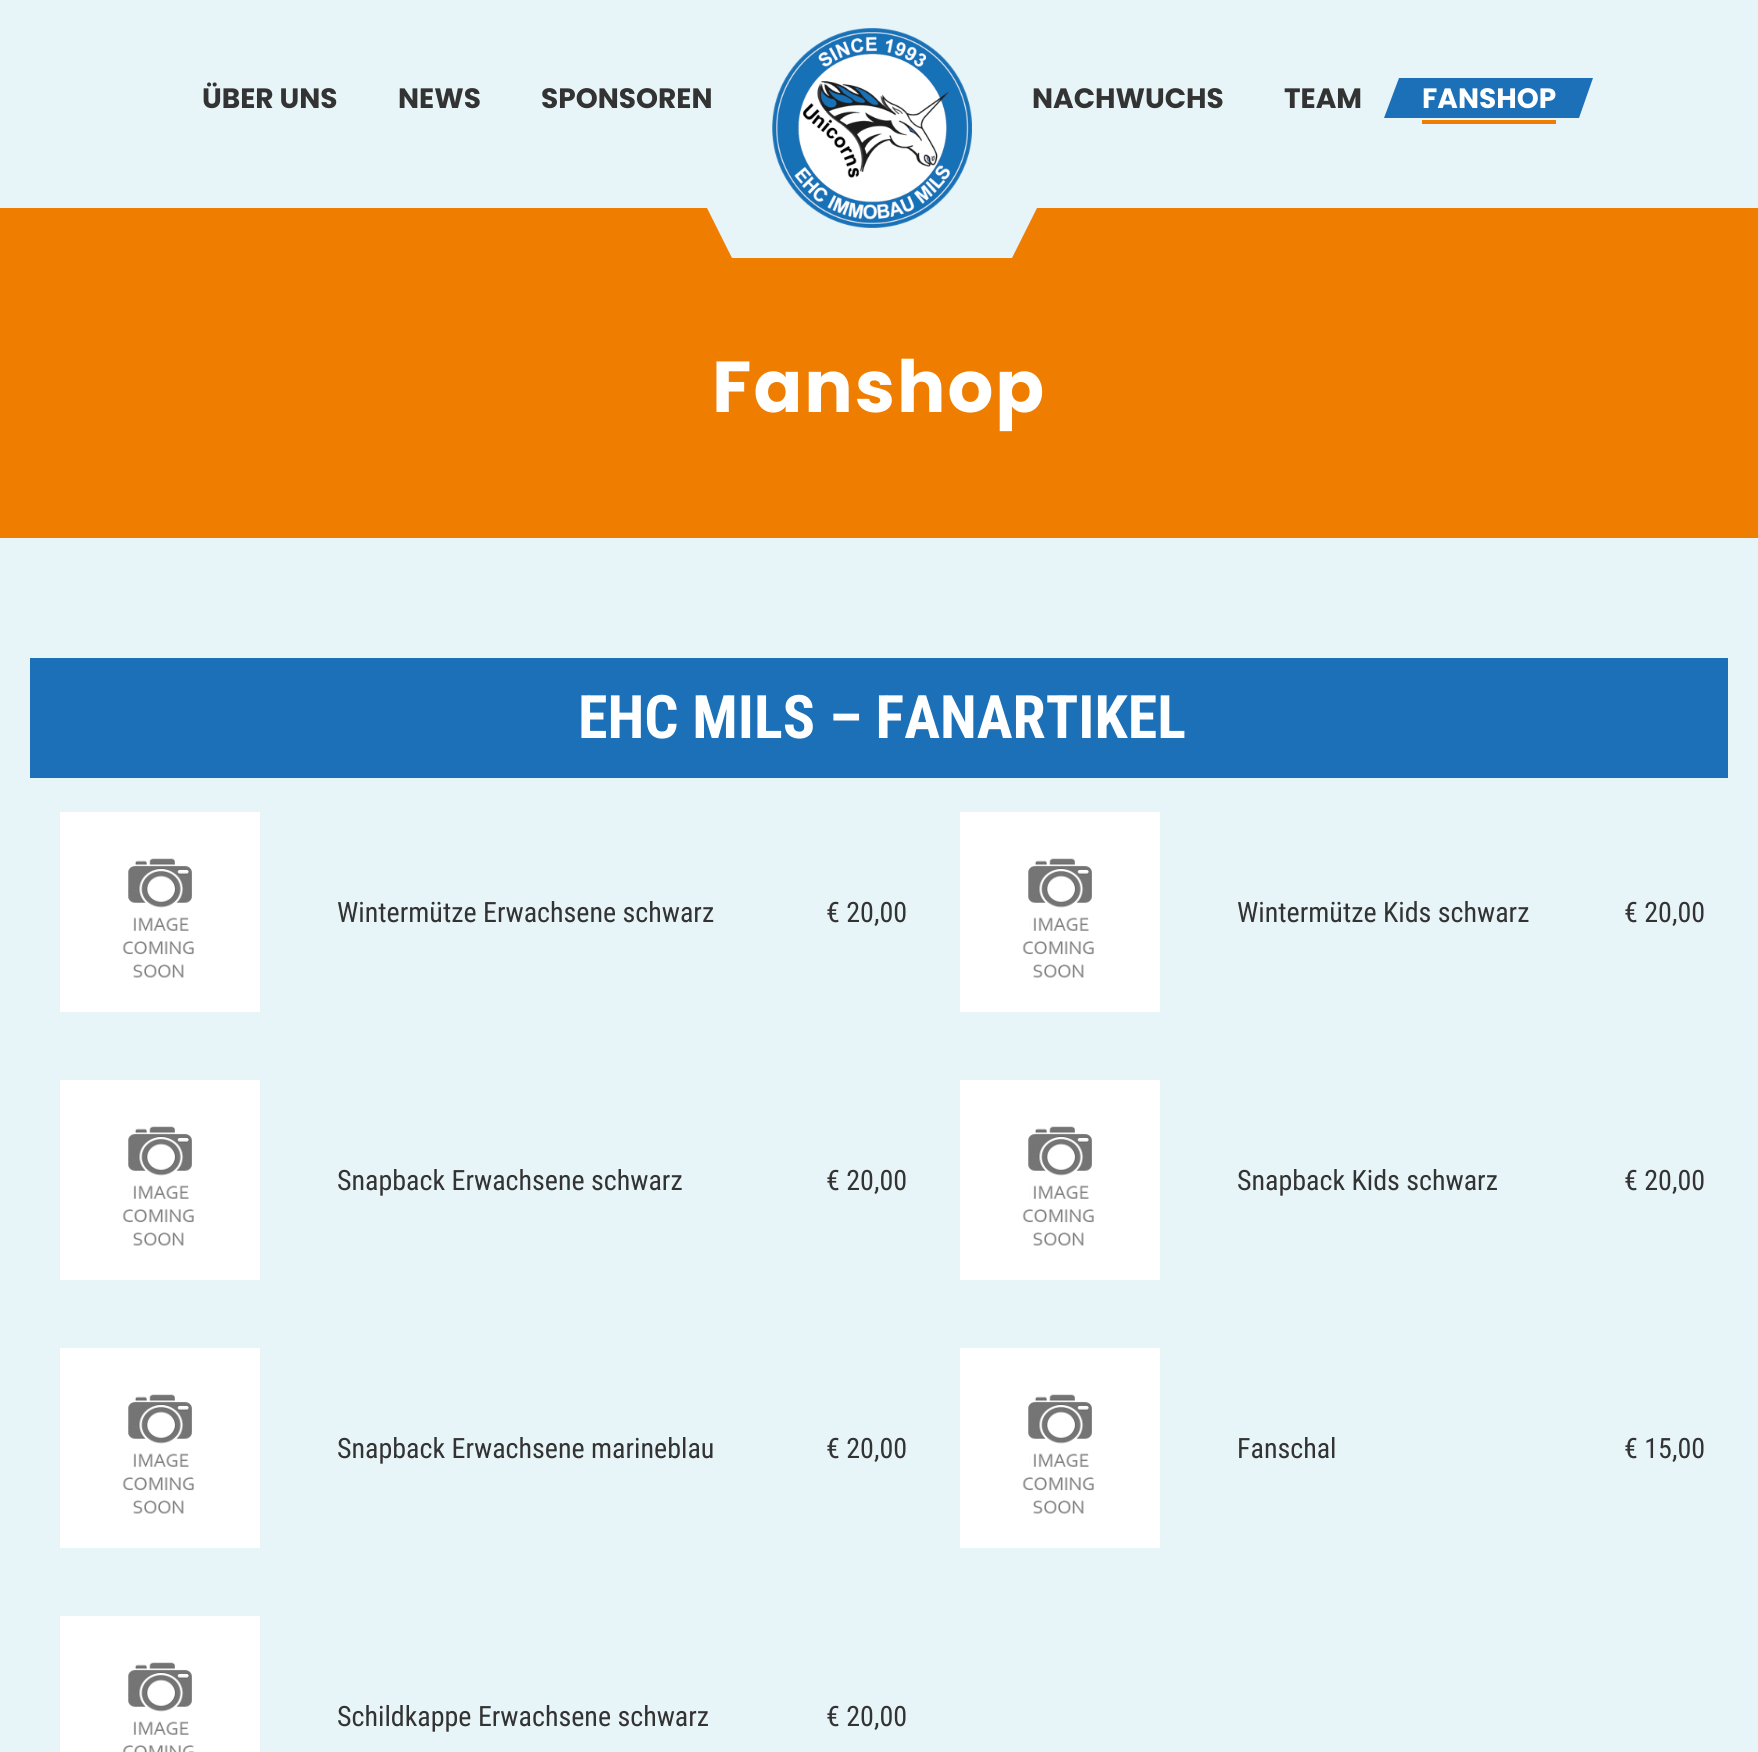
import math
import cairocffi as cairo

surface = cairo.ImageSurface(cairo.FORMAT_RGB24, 1758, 1752)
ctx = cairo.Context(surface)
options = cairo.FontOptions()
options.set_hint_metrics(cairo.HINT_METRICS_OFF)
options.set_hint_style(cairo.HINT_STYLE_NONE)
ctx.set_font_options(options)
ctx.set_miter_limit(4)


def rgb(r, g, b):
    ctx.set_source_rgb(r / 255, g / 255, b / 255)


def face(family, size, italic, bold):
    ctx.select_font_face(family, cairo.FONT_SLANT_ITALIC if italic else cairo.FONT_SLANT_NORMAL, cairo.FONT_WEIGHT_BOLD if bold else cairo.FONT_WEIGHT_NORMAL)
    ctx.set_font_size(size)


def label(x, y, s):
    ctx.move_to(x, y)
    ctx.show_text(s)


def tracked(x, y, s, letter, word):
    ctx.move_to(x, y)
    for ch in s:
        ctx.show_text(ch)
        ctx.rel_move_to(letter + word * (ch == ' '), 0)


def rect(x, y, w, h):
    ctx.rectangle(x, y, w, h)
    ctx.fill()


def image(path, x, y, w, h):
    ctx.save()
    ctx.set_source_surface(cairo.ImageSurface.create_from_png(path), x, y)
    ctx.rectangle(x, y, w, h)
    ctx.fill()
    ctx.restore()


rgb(231, 244, 248)
ctx.paint()
face('Poppins', 28, 0, 1)
rgb(51, 51, 51)
label(202, 108, 'ÜBER UNS')
label(398, 108, 'NEWS')
label(541, 108, 'SPONSOREN')
rgb(239, 125, 0)
rect(0, 208, 1758, 330)
rgb(231, 244, 248)
ctx.new_path()
ctx.move_to(682, 158)
ctx.line_to(1062, 158)
ctx.line_to(1012, 258)
ctx.line_to(732, 258)
ctx.close_path()
ctx.fill()
image('image0.png', 772, 28, 200, 200)
rgb(51, 51, 51)
label(1032, 108, 'NACHWUCHS')
label(1284, 108, 'TEAM')
rgb(28, 112, 183)
ctx.new_path()
ctx.move_to(1399, 78)
ctx.line_to(1593, 78)
ctx.line_to(1579, 118)
ctx.line_to(1384, 118)
ctx.close_path()
ctx.fill()
rgb(255, 255, 255)
label(1422, 108, 'FANSHOP')
rgb(239, 125, 0)
rect(1422, 120, 134, 4)
face('Poppins', 72, 0, 1)
rgb(255, 255, 255)
tracked(712, 412, 'Fanshop', 2, 0)
rgb(28, 112, 183)
rect(30, 658, 1698, 120)
face('Roboto Condensed', 60, 0, 1)
rgb(255, 255, 255)
label(578, 738, 'EHC MILS – FANARTIKEL')
image('image1.png', 60, 812, 200, 200)
face('Roboto Condensed', 28, 0, 0)
rgb(51, 51, 51)
label(337, 922, 'Wintermütze Erwachsene schwarz')
label(826, 922, '€ 20,00')
image('image2.png', 960, 812, 200, 200)
label(1237, 922, 'Wintermütze Kids schwarz')
label(1624, 922, '€ 20,00')
image('image1.png', 60, 1080, 200, 200)
label(337, 1190, 'Snapback Erwachsene schwarz')
label(826, 1190, '€ 20,00')
image('image2.png', 960, 1080, 200, 200)
label(1237, 1190, 'Snapback Kids schwarz')
label(1624, 1190, '€ 20,00')
image('image1.png', 60, 1348, 200, 200)
label(337, 1458, 'Snapback Erwachsene marineblau')
label(826, 1458, '€ 20,00')
image('image2.png', 960, 1348, 200, 200)
label(1237, 1458, 'Fanschal')
label(1624, 1458, '€ 15,00')
image('image3.png', 60, 1616, 200, 136)
label(337, 1726, 'Schildkappe Erwachsene schwarz')
label(826, 1726, '€ 20,00')
surface.write_to_png('render.png')
